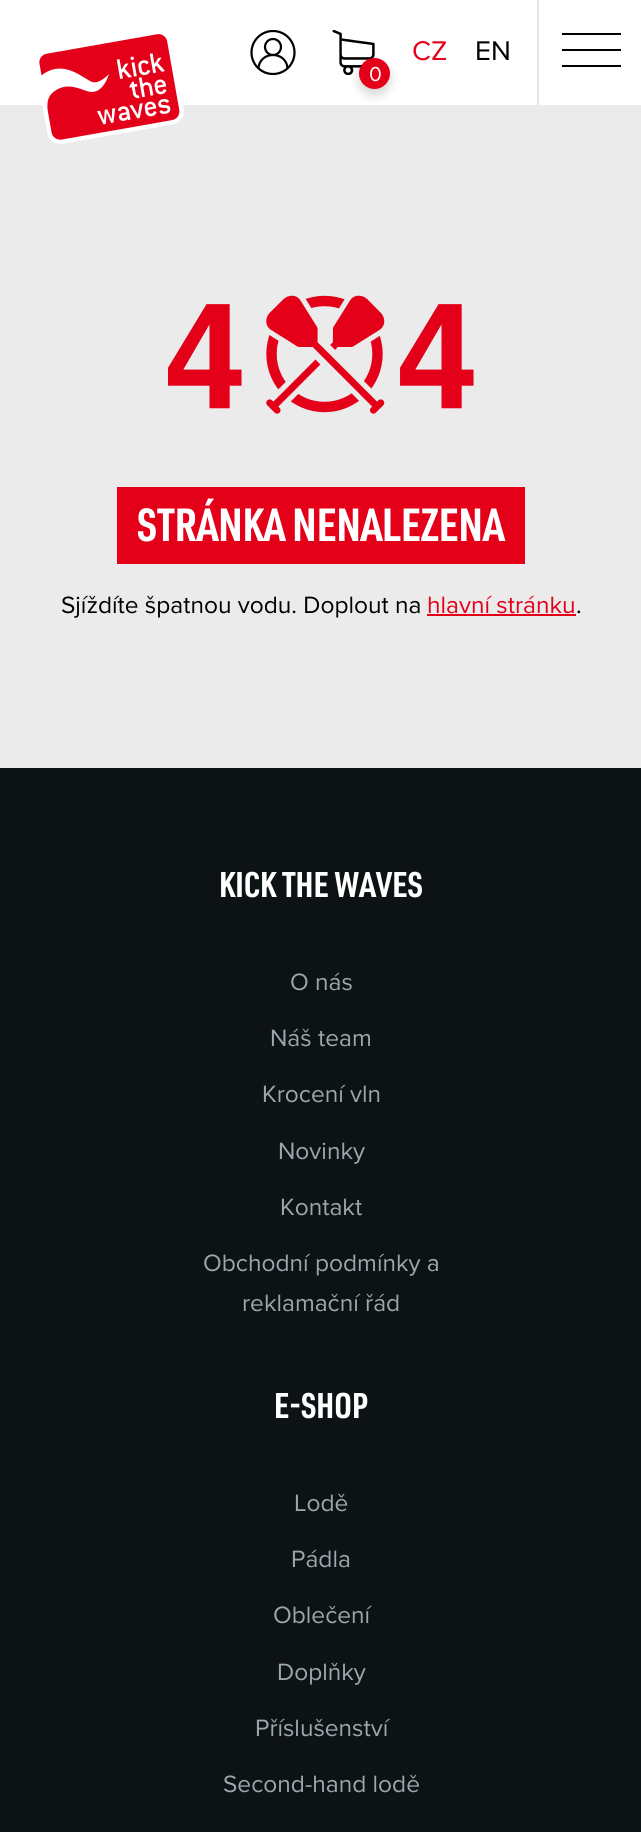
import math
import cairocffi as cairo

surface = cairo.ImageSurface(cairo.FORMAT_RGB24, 641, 1832)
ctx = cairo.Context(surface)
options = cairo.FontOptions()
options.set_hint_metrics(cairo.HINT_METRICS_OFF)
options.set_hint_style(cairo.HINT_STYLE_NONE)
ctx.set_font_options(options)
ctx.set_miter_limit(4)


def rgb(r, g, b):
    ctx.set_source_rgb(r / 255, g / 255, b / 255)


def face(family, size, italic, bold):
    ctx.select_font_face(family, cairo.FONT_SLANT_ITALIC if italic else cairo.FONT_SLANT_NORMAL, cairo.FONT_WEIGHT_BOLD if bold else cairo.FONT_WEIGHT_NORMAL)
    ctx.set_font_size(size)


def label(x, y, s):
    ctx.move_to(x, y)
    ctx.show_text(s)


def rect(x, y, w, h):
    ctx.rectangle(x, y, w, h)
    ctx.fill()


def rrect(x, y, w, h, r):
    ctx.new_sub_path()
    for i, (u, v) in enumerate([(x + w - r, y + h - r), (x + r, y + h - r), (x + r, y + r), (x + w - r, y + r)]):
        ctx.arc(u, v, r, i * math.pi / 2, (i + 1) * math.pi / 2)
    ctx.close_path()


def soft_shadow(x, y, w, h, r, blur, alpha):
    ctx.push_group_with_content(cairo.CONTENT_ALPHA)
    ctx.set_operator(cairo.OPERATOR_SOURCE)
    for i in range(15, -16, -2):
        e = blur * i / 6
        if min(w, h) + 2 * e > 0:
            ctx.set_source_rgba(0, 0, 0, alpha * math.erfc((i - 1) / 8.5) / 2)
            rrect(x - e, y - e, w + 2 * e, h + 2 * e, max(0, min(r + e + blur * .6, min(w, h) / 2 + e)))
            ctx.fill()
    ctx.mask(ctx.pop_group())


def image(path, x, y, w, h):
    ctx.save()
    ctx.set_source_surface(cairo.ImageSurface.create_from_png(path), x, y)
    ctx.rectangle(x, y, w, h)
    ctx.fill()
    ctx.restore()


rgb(235, 235, 235)
ctx.paint()
rgb(255, 255, 255)
rect(0, 0, 641, 105)
image('image0.png', 39, 34, 145, 110)
ctx.save()
ctx.rectangle(250, 30, 46, 45)
ctx.clip()
ctx.arc(273, 52.5, 21.5, 0, 2 * math.pi)
rgb(0, 0, 0)
ctx.set_line_width(2.2)
ctx.stroke()
ctx.restore()
ctx.arc(273, 47, 8, 0, 2 * math.pi)
rgb(0, 0, 0)
ctx.set_line_width(2.2)
ctx.stroke()
ctx.new_path()
ctx.move_to(258.5, 68.5)
ctx.curve_to(259.5, 50.5, 286.5, 50.5, 287.5, 68.5)
ctx.stroke()
face('Proxima Nova', 28, 0, 0)
rgb(229, 0, 25)
label(412, 60, 'CZ')
rgb(0, 0, 0)
label(475, 60, 'EN')
image('image1.png', 332, 30, 43, 45)
rgb(0, 0, 0)
soft_shadow(359, 63, 31, 32, 15.5, 5, 0.16)
rgb(229, 0, 25)
ctx.arc(374.5, 73.5, 15.5, 0, 2 * math.pi)
ctx.fill()
face('Proxima Nova', 21, 0, 0)
rgb(255, 255, 255)
label(369, 81, '0')
rgb(230, 230, 230)
rect(537, 0, 2, 105)
rgb(0, 0, 0)
rect(562, 33, 59, 2)
rect(562, 49, 59, 2)
rect(562, 65, 59, 2)
image('image2.png', 168, 295, 306, 119)
rgb(229, 0, 25)
rect(117, 487, 408, 77)
face('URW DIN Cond', 45.5, 0, 1)
rgb(255, 255, 255)
label(137, 541, 'STRÁNKA NENALEZENA')
face('Proxima Nova', 24.5, 0, 0)
rgb(0, 0, 0)
label(61, 613, 'Sjíždíte špatnou vodu. Doplout na')
rgb(229, 0, 25)
label(427, 613, 'hlavní stránku')
rect(427, 614, 149, 2)
rgb(0, 0, 0)
label(576, 613, '.')
rgb(13, 18, 20)
rect(0, 768, 641, 1064)
face('URW DIN Cond', 35, 0, 1)
rgb(255, 255, 255)
label(219, 897, 'KICK THE WAVES')
face('Proxima Nova', 24.5, 0, 0)
rgb(156, 166, 172)
label(290, 990, 'O nás')
label(270, 1046, 'Náš team')
label(262, 1102, 'Krocení vln')
label(278, 1159, 'Novinky')
label(280, 1215, 'Kontakt')
label(203, 1271, 'Obchodní podmínky a')
label(242, 1311, 'reklamační řád')
face('URW DIN Cond', 35, 0, 1)
rgb(255, 255, 255)
label(274, 1418, 'E-SHOP')
face('Proxima Nova', 24.5, 0, 0)
rgb(156, 166, 172)
label(294, 1511, 'Lodě')
label(291, 1567, 'Pádla')
label(273, 1623, 'Oblečení')
label(277, 1680, 'Doplňky')
label(255, 1736, 'Příslušenství')
label(223, 1792, 'Second-hand lodě')
surface.write_to_png('render.png')
